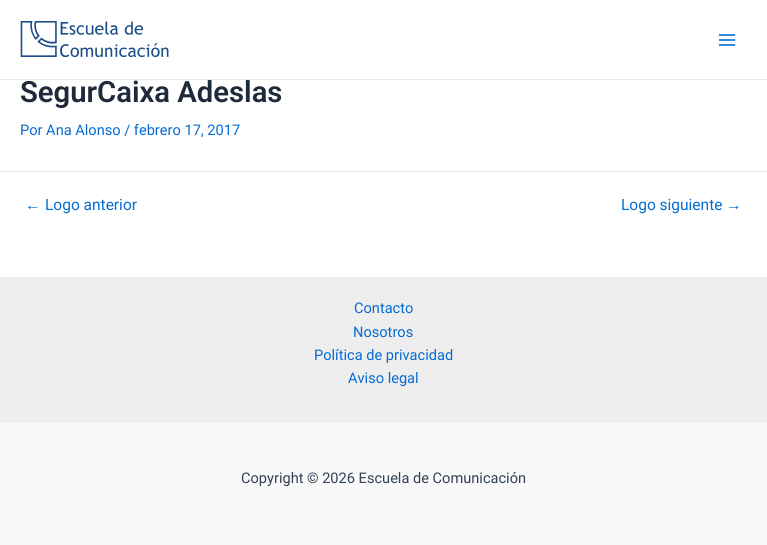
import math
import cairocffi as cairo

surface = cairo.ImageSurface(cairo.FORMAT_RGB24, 767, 545)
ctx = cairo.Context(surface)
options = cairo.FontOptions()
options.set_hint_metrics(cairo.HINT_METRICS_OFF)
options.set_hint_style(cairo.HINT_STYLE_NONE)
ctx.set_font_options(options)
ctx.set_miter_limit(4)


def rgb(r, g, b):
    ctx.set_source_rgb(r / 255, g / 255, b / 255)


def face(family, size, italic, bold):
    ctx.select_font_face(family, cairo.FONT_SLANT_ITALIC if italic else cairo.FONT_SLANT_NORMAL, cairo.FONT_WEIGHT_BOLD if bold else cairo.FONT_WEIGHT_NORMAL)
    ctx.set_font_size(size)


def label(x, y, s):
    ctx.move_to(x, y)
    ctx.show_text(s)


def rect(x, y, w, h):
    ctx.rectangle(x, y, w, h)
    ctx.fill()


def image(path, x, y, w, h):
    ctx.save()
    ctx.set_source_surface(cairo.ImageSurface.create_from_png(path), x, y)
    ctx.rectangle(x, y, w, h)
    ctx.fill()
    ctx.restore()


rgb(255, 255, 255)
ctx.paint()
rgb(234, 234, 234)
rect(0, 79, 767, 1)
image('image0.png', 20, 21, 149, 36)
image('image1.png', 718, 34, 18, 12)
face('Roboto SemiBold', 29.25, 0, 0)
rgb(30, 41, 59)
label(20, 102, 'SegurCaixa Adeslas')
face('Roboto', 14.6, 0, 0)
rgb(4, 107, 210)
label(20, 135, 'Por Ana Alonso / febrero 17, 2017')
rgb(226, 232, 240)
rect(0, 171, 767, 1)
face('Liberation Sans', 15.5, 0, 0)
rgb(4, 107, 210)
label(25, 210, '←')
face('Roboto', 15.5, 0, 0)
label(45, 210, 'Logo anterior')
label(621, 210, 'Logo siguiente')
face('Liberation Sans', 15.5, 0, 0)
label(726, 210, '→')
rgb(238, 238, 238)
rect(0, 277, 767, 144)
face('Roboto', 14.6, 0, 0)
rgb(4, 107, 210)
label(354, 313, 'Contacto')
label(353, 337, 'Nosotros')
label(314, 360, 'Política de privacidad')
label(348, 383, 'Aviso legal')
rgb(249, 249, 249)
rect(0, 422, 767, 123)
rgb(230, 230, 230)
rect(0, 421, 767, 1)
rgb(51, 65, 85)
label(241, 483, 'Copyright © 2026 Escuela de Comunicación')
surface.write_to_png('render.png')
